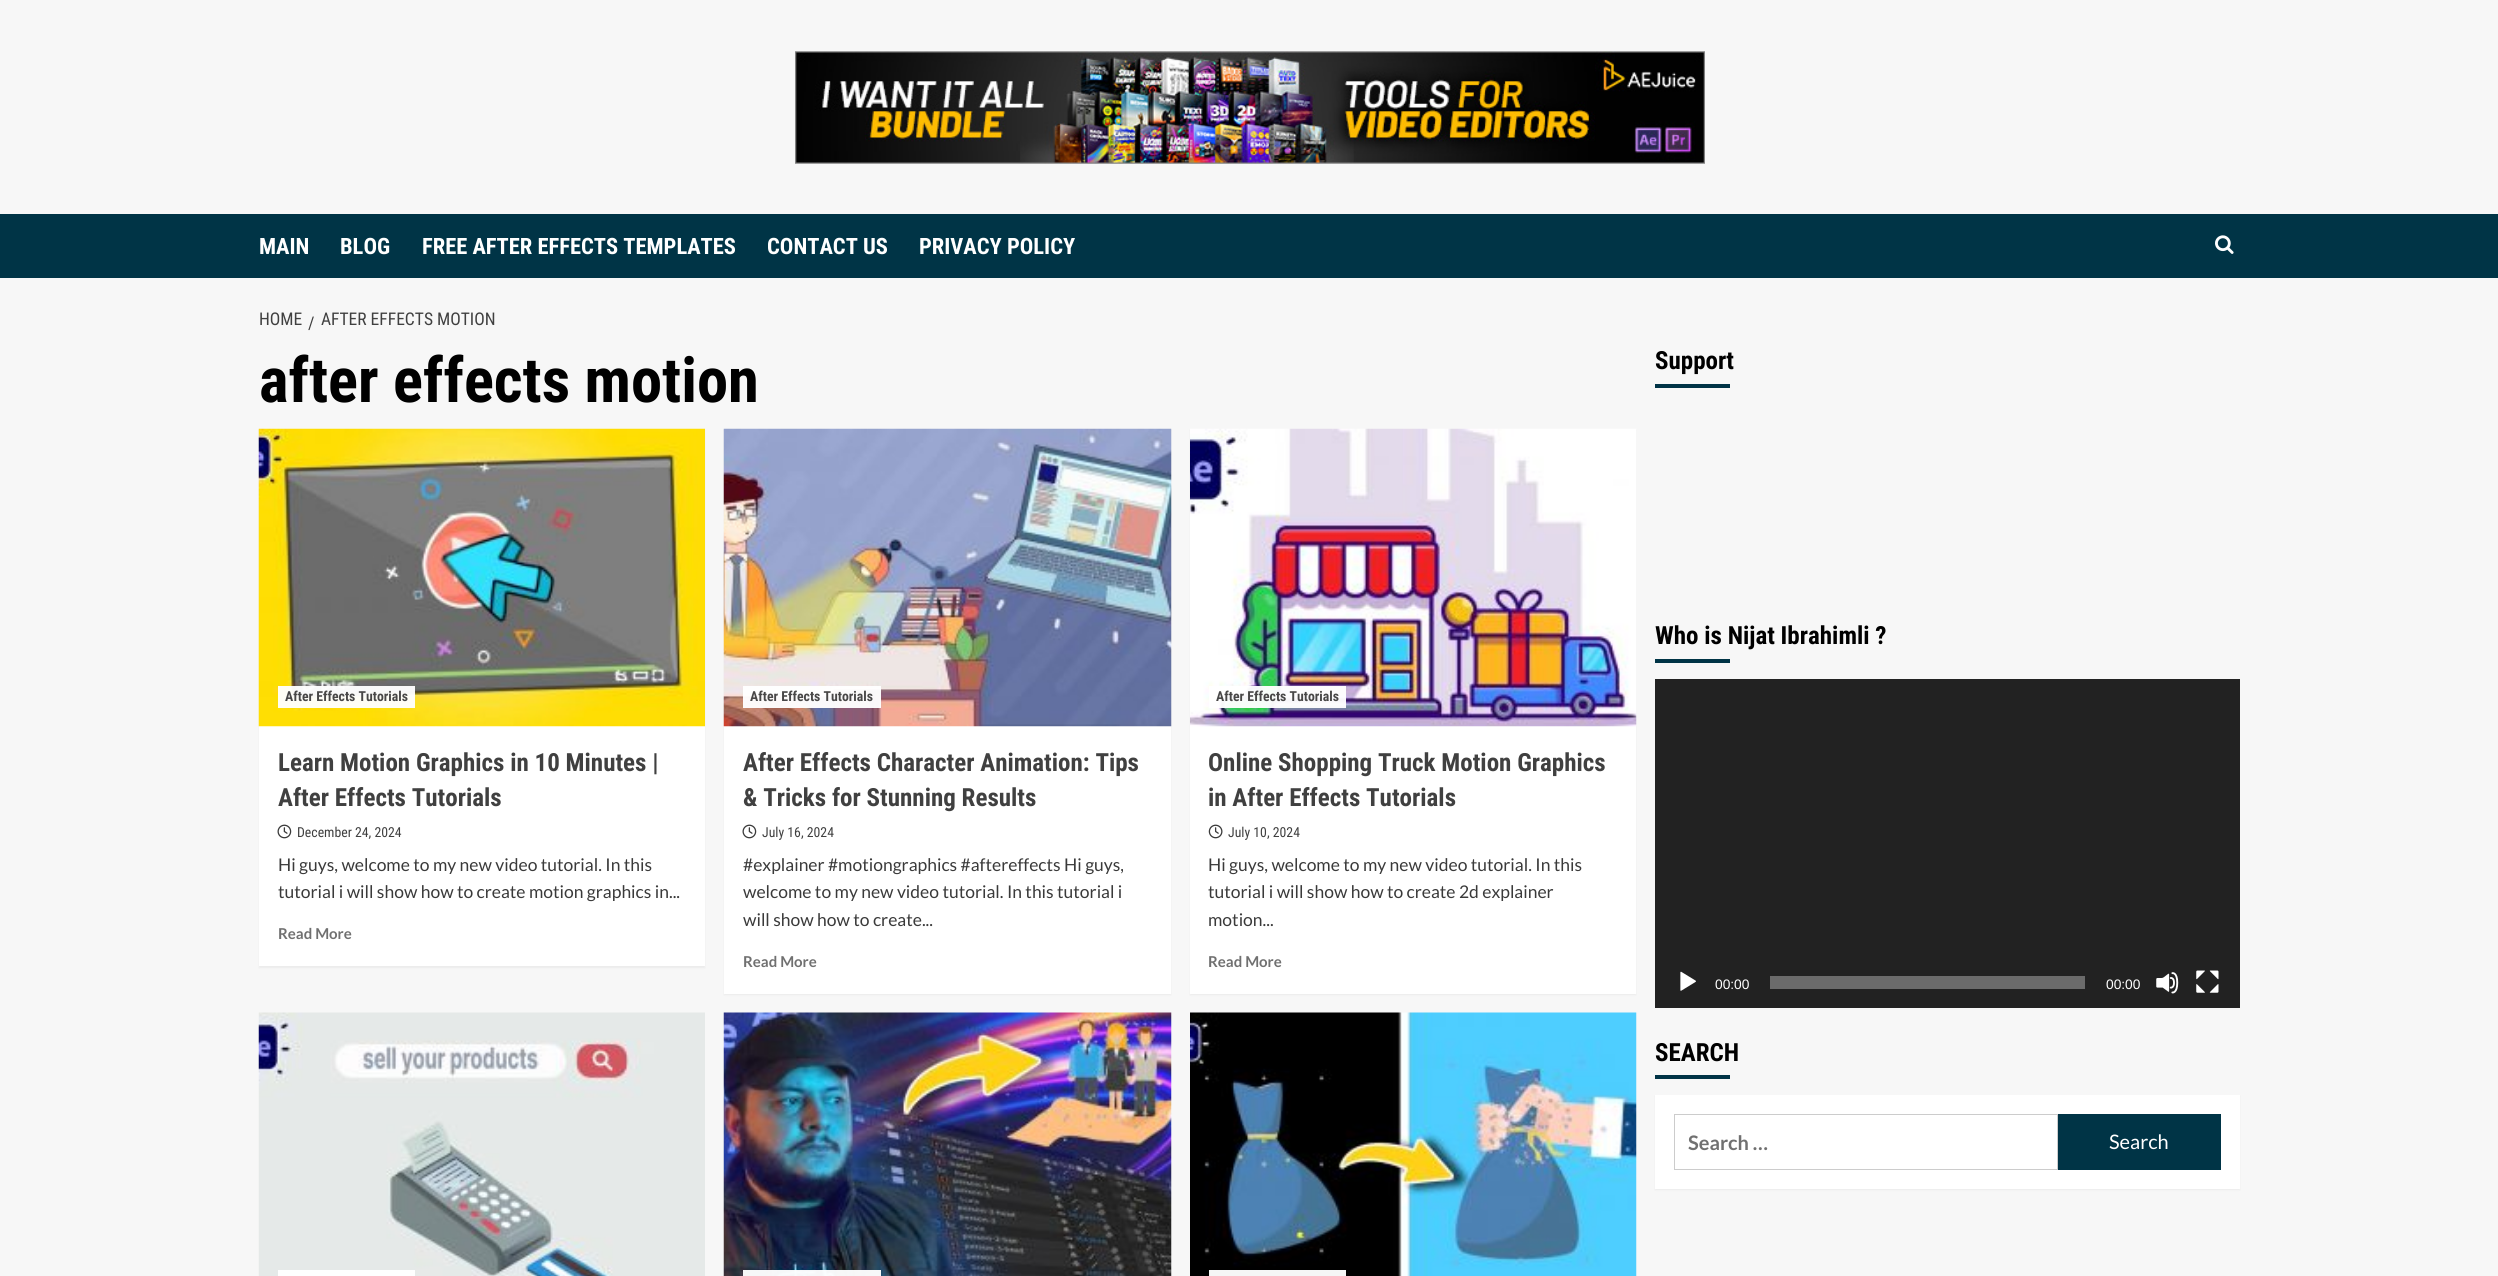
import math
import cairocffi as cairo

surface = cairo.ImageSurface(cairo.FORMAT_RGB24, 2498, 1276)
ctx = cairo.Context(surface)
options = cairo.FontOptions()
options.set_hint_metrics(cairo.HINT_METRICS_OFF)
options.set_hint_style(cairo.HINT_STYLE_NONE)
ctx.set_font_options(options)
ctx.set_miter_limit(4)


def rgb(r, g, b):
    ctx.set_source_rgb(r / 255, g / 255, b / 255)


def face(family, size, italic, bold):
    ctx.select_font_face(family, cairo.FONT_SLANT_ITALIC if italic else cairo.FONT_SLANT_NORMAL, cairo.FONT_WEIGHT_BOLD if bold else cairo.FONT_WEIGHT_NORMAL)
    ctx.set_font_size(size)


def label(x, y, s):
    ctx.move_to(x, y)
    ctx.show_text(s)


def rect(x, y, w, h):
    ctx.rectangle(x, y, w, h)
    ctx.fill()


def rrect(x, y, w, h, r):
    ctx.new_sub_path()
    for i, (u, v) in enumerate([(x + w - r, y + h - r), (x + r, y + h - r), (x + r, y + r), (x + w - r, y + r)]):
        ctx.arc(u, v, r, i * math.pi / 2, (i + 1) * math.pi / 2)
    ctx.close_path()


def soft_shadow(x, y, w, h, r, blur, alpha):
    ctx.push_group_with_content(cairo.CONTENT_ALPHA)
    ctx.set_operator(cairo.OPERATOR_SOURCE)
    for i in range(15, -16, -2):
        e = blur * i / 6
        if min(w, h) + 2 * e > 0:
            ctx.set_source_rgba(0, 0, 0, alpha * math.erfc((i - 1) / 8.5) / 2)
            rrect(x - e, y - e, w + 2 * e, h + 2 * e, max(0, min(r + e + blur * .6, min(w, h) / 2 + e)))
            ctx.fill()
    ctx.mask(ctx.pop_group())


def image(path, x, y, w, h):
    ctx.save()
    ctx.set_source_surface(cairo.ImageSurface.create_from_png(path), x, y)
    ctx.rectangle(x, y, w, h)
    ctx.fill()
    ctx.restore()


rgb(247, 247, 247)
ctx.paint()
image('image0.png', 795, 51, 910, 113)
rgb(0, 52, 70)
rect(0, 214, 2498, 64)
face('Roboto Condensed', 22.5, 0, 1)
rgb(255, 255, 255)
label(259, 254, 'MAIN')
label(340, 254, 'BLOG')
label(422, 254, 'FREE AFTER EFFECTS TEMPLATES')
label(767, 254, 'CONTACT US')
label(919, 254, 'PRIVACY POLICY')
image('image1.png', 2215, 235, 19, 19)
face('Roboto Condensed', 17.5, 0, 0)
rgb(64, 64, 64)
label(259, 325, 'HOME')
label(308, 329, '/')
label(321, 325, 'AFTER EFFECTS MOTION')
face('Roboto Condensed', 62.5, 0, 1)
rgb(0, 0, 0)
label(259, 402, 'after effects motion')
rgb(0, 0, 0)
soft_shadow(259, 430, 446, 538, 0, 1, 0.05)
rgb(255, 255, 255)
rect(259, 726, 446, 240)
image('image2.png', 258, 428, 447, 299)
ctx.set_source_rgba(1, 1, 1, 0.96)
rect(278, 686, 137, 22)
face('Roboto Condensed', 13.75, 0, 1)
rgb(72, 71, 71)
label(285, 701, 'After Effects Tutorials')
face('Roboto Condensed', 25, 0, 1)
rgb(64, 64, 64)
label(278, 771, 'Learn Motion Graphics in 10 Minutes |')
label(278, 806, 'After Effects Tutorials')
image('image3.png', 277, 824, 15, 15)
face('Roboto Condensed', 13.75, 0, 0)
label(297, 837, 'December 24, 2024')
face('Lato', 17.5, 0, 0)
rgb(58, 58, 58)
label(278, 871, 'Hi guys, welcome to my new video tutorial. In this')
label(278, 898, 'tutorial i will show how to create motion graphics in...')
face('Lato', 15, 0, 1)
rgb(112, 112, 112)
label(278, 939, 'Read More')
rgb(0, 0, 0)
soft_shadow(724, 430, 447, 565, 0, 1, 0.05)
rgb(255, 255, 255)
rect(724, 726, 447, 268)
image('image4.png', 723, 428, 449, 299)
ctx.set_source_rgba(1, 1, 1, 0.96)
rect(743, 686, 138, 22)
face('Roboto Condensed', 13.75, 0, 1)
rgb(72, 71, 71)
label(750, 701, 'After Effects Tutorials')
face('Roboto Condensed', 25, 0, 1)
rgb(64, 64, 64)
label(743, 771, 'After Effects Character Animation: Tips')
label(743, 806, '& Tricks for Stunning Results')
image('image3.png', 742, 824, 15, 15)
face('Roboto Condensed', 13.75, 0, 0)
label(762, 837, 'July 16, 2024')
face('Lato', 17.5, 0, 0)
rgb(58, 58, 58)
label(743, 871, '#explainer #motiongraphics #aftereffects Hi guys,')
label(743, 898, 'welcome to my new video tutorial. In this tutorial i')
label(743, 926, 'will show how to create...')
face('Lato', 15, 0, 1)
rgb(112, 112, 112)
label(743, 967, 'Read More')
rgb(0, 0, 0)
soft_shadow(1190, 430, 446, 565, 0, 1, 0.05)
rgb(255, 255, 255)
rect(1190, 726, 446, 268)
image('image5.png', 1190, 428, 447, 299)
ctx.set_source_rgba(1, 1, 1, 0.96)
rect(1209, 686, 137, 22)
face('Roboto Condensed', 13.75, 0, 1)
rgb(72, 71, 71)
label(1216, 701, 'After Effects Tutorials')
face('Roboto Condensed', 25, 0, 1)
rgb(64, 64, 64)
label(1208, 771, 'Online Shopping Truck Motion Graphics')
label(1208, 806, 'in After Effects Tutorials')
image('image6.png', 1208, 824, 15, 15)
face('Roboto Condensed', 13.75, 0, 0)
label(1228, 837, 'July 10, 2024')
face('Lato', 17.5, 0, 0)
rgb(58, 58, 58)
label(1208, 871, 'Hi guys, welcome to my new video tutorial. In this')
label(1208, 898, 'tutorial i will show how to create 2d explainer')
label(1208, 926, 'motion...')
face('Lato', 15, 0, 1)
rgb(112, 112, 112)
label(1208, 967, 'Read More')
image('image7.png', 258, 1012, 447, 264)
rgb(254, 254, 254)
rect(278, 1270, 137, 6)
image('image8.png', 723, 1012, 449, 264)
ctx.set_source_rgba(1, 1, 1, 0.96)
rect(743, 1270, 138, 6)
image('image9.png', 1190, 1012, 447, 264)
rgb(245, 245, 245)
rect(1209, 1270, 137, 6)
face('Roboto Condensed', 25, 0, 1)
rgb(0, 0, 0)
label(1655, 369, 'Support')
rgb(0, 52, 70)
rect(1655, 384, 75, 4)
rgb(0, 0, 0)
label(1655, 644, 'Who is Nijat Ibrahimli ?')
rgb(0, 52, 70)
rect(1655, 659, 75, 4)
rgb(34, 34, 34)
rect(1655, 679, 585, 329)
image('image10.png', 1680, 971, 16, 20)
face('Liberation Sans', 13.75, 0, 0)
rgb(255, 255, 255)
label(1715, 989, '00:00')
rgb(107, 107, 107)
rect(1770, 976, 315, 13)
rgb(255, 255, 255)
label(2106, 989, '00:00')
image('image11.png', 2156, 972, 23, 22)
image('image12.png', 2196, 970, 23, 23)
face('Roboto Condensed', 25, 0, 1)
rgb(0, 0, 0)
label(1655, 1061, 'SEARCH')
rgb(0, 52, 70)
rect(1655, 1075, 75, 4)
rgb(0, 0, 0)
soft_shadow(1655, 1096, 585, 94, 0, 1, 0.05)
rgb(255, 255, 255)
rect(1655, 1095, 585, 94)
ctx.rectangle(1674.5, 1114.5, 383, 55)
rgb(204, 204, 204)
ctx.set_line_width(1)
ctx.stroke()
face('Lato', 20, 0, 1)
rgb(112, 112, 112)
label(1688, 1150, 'Search …')
rgb(0, 52, 70)
rect(2058, 1114, 163, 56)
face('Lato', 20, 0, 0)
rgb(255, 255, 255)
label(2109, 1149, 'Search')
surface.write_to_png('render.png')
